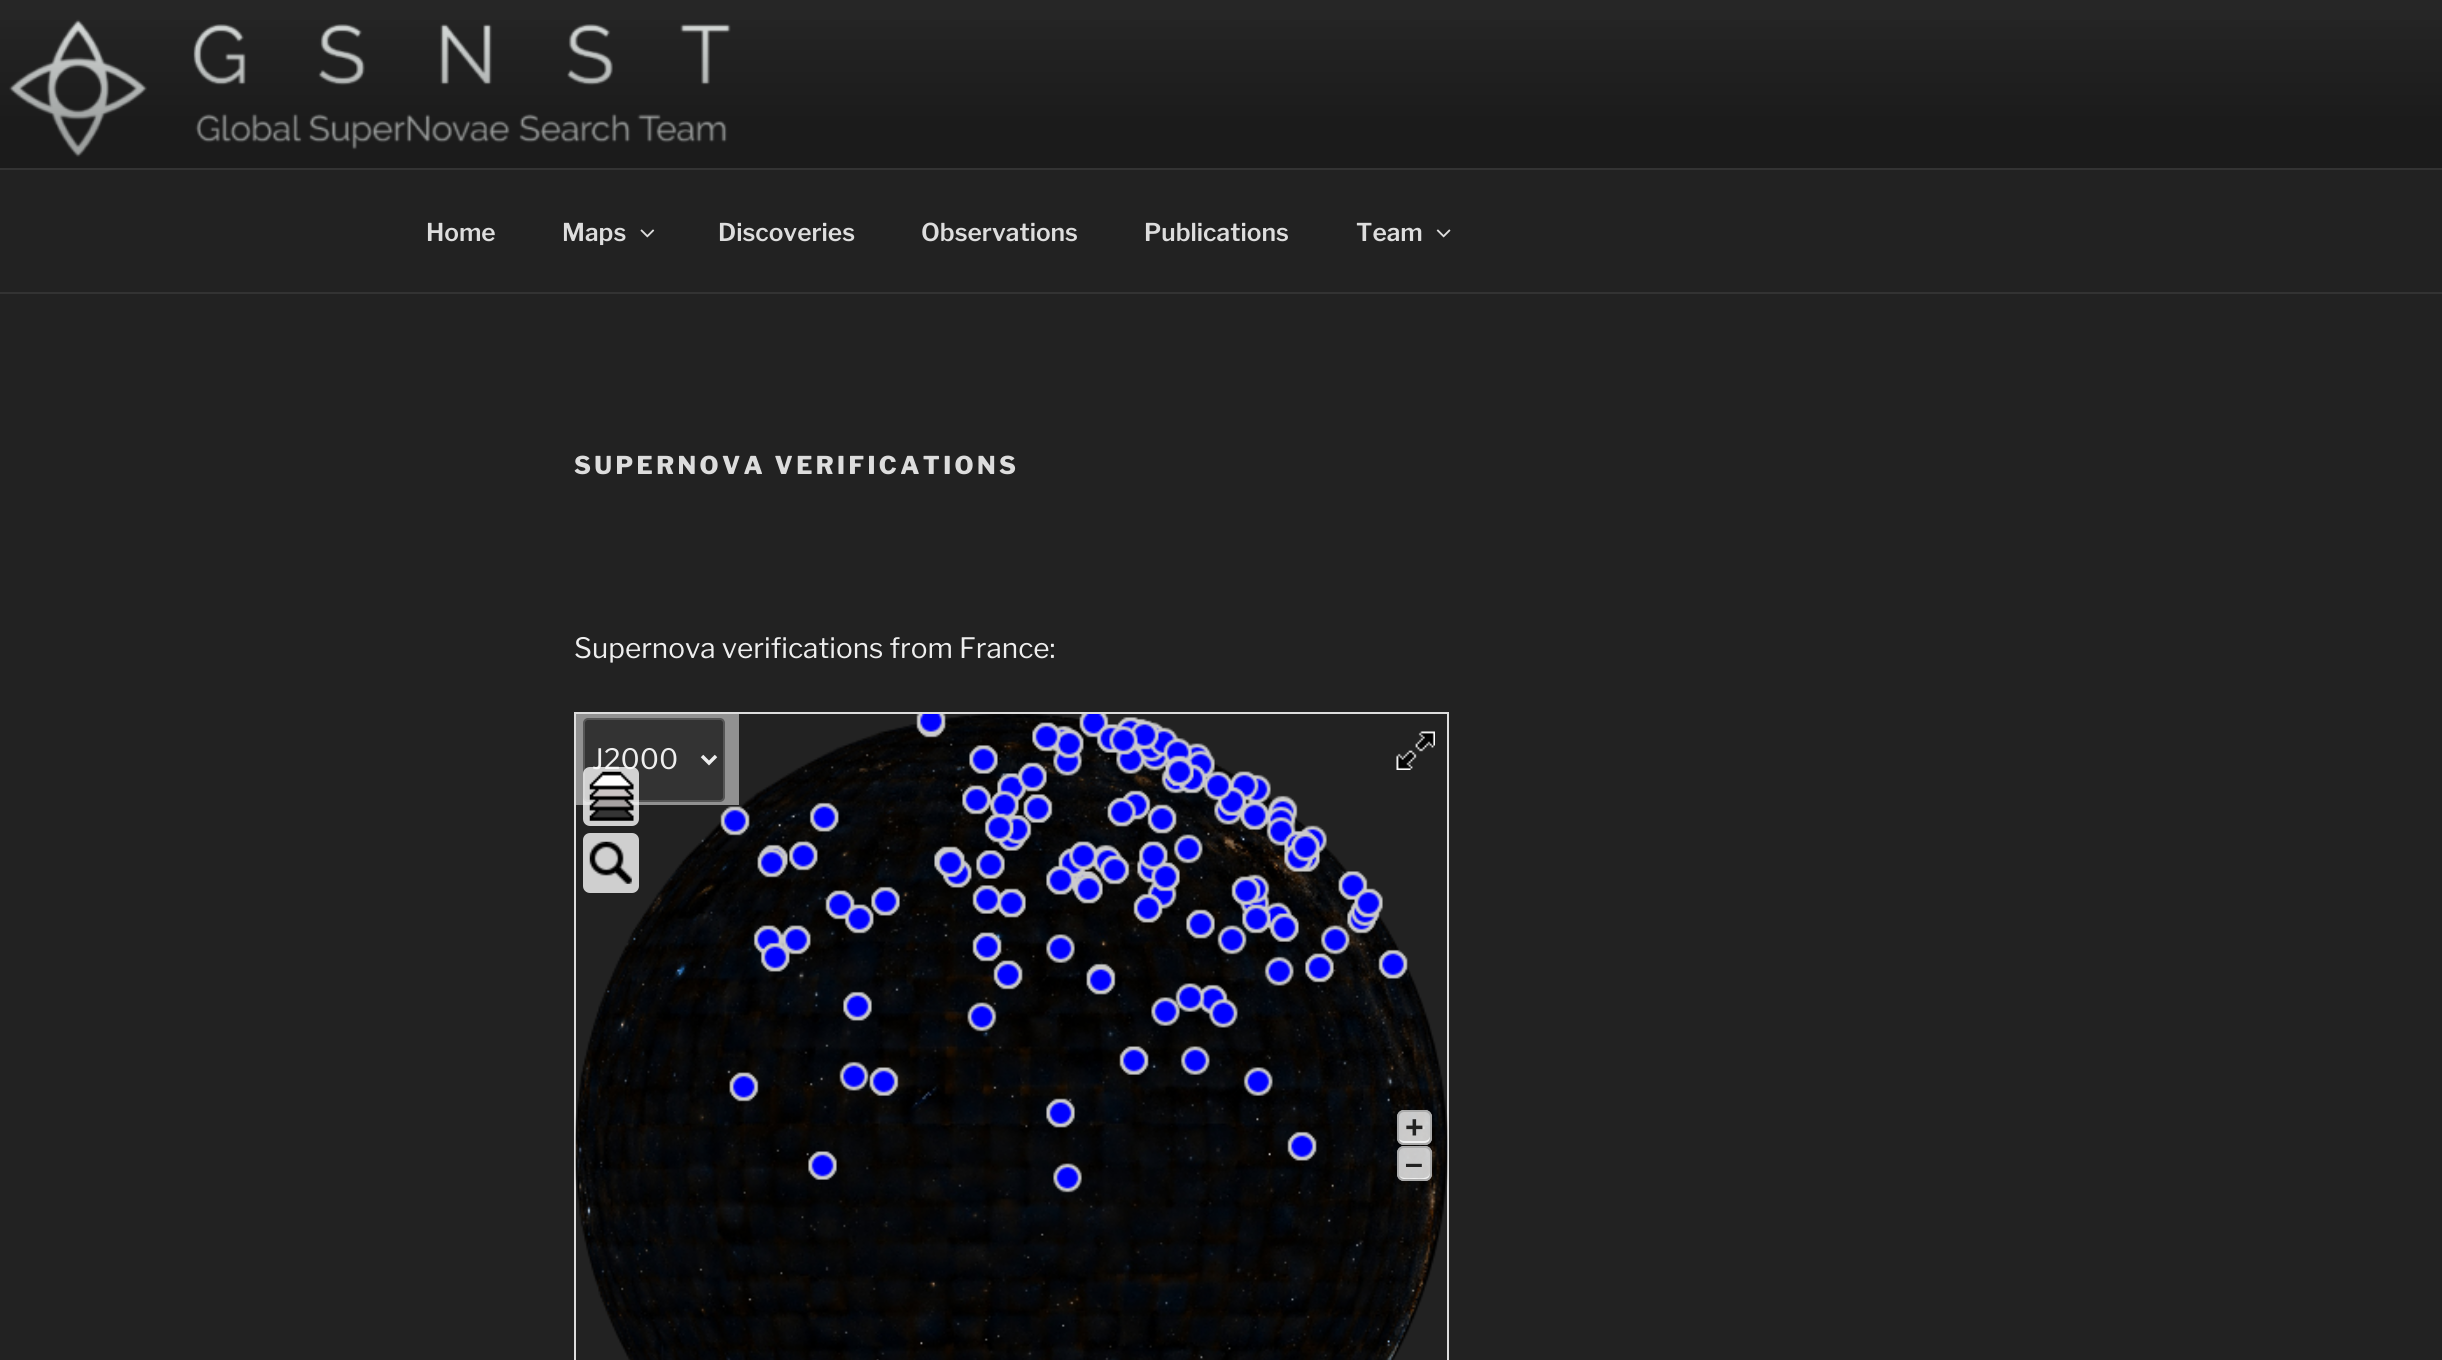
import math
import cairocffi as cairo

surface = cairo.ImageSurface(cairo.FORMAT_RGB24, 2442, 1360)
ctx = cairo.Context(surface)
options = cairo.FontOptions()
options.set_hint_metrics(cairo.HINT_METRICS_OFF)
options.set_hint_style(cairo.HINT_STYLE_NONE)
ctx.set_font_options(options)
ctx.set_miter_limit(4)


def rgb(r, g, b):
    ctx.set_source_rgb(r / 255, g / 255, b / 255)


def face(family, size, italic, bold):
    ctx.select_font_face(family, cairo.FONT_SLANT_ITALIC if italic else cairo.FONT_SLANT_NORMAL, cairo.FONT_WEIGHT_BOLD if bold else cairo.FONT_WEIGHT_NORMAL)
    ctx.set_font_size(size)


def label(x, y, s):
    ctx.move_to(x, y)
    ctx.show_text(s)


def tracked(x, y, s, letter, word):
    ctx.move_to(x, y)
    for ch in s:
        ctx.show_text(ch)
        ctx.rel_move_to(letter + word * (ch == ' '), 0)


def rect(x, y, w, h):
    ctx.rectangle(x, y, w, h)
    ctx.fill()


def rrect(x, y, w, h, r):
    ctx.new_sub_path()
    for i, (u, v) in enumerate([(x + w - r, y + h - r), (x + r, y + h - r), (x + r, y + r), (x + w - r, y + r)]):
        ctx.arc(u, v, r, i * math.pi / 2, (i + 1) * math.pi / 2)
    ctx.close_path()


def image(path, x, y, w, h):
    ctx.save()
    ctx.set_source_surface(cairo.ImageSurface.create_from_png(path), x, y)
    ctx.rectangle(x, y, w, h)
    ctx.fill()
    ctx.restore()


rgb(34, 34, 34)
ctx.paint()
rgb(38, 38, 38)
rect(0, 0, 2442, 168)
image('image0.png', 9, 19, 722, 138)
gradient = cairo.LinearGradient(1222, 0, 1222, 168)
gradient.add_color_stop_rgba(0, 0, 0, 0, 0)
gradient.add_color_stop_rgba(0.75, 0, 0, 0, 0.3)
gradient.add_color_stop_rgba(1, 0, 0, 0, 0.3)
ctx.set_source(gradient)
rect(0, 20, 2442, 148)
rgb(51, 51, 51)
rect(0, 168, 2442, 2)
rect(0, 292, 2442, 2)
face('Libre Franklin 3 Thin', 24.5, 0, 0)
rgb(221, 221, 221)
label(426, 241, 'Home')
label(562, 241, 'Maps')
image('image1.png', 640, 229, 15, 9)
label(718, 241, 'Discoveries')
label(921, 241, 'Observations')
label(1144, 241, 'Publications')
label(1356, 241, 'Team')
image('image2.png', 1436, 229, 15, 9)
face('Libre Franklin Thin', 24.5, 0, 0)
tracked(574, 474, 'SUPERNOVA VERIFICATIONS', 3.4, 0)
face('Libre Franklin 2 Thin', 28, 0, 0)
rgb(238, 238, 238)
label(574, 658, 'Supernova verifications from France:')
ctx.rectangle(575, 713, 873, 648)
rgb(221, 221, 221)
ctx.stroke()
image('image3.png', 575, 714, 873, 646)
image('image4.png', 720, 714, 688, 479)
rgb(145, 145, 145)
rect(576, 714, 163, 91)
rgb(51, 51, 51)
rrect(584, 719, 140, 82, 4)
ctx.fill_preserve()
rgb(85, 85, 85)
ctx.stroke()
ctx.new_path()
ctx.move_to(702, 756)
ctx.line_to(709, 763)
ctx.line_to(716, 756)
rgb(238, 238, 238)
ctx.set_line_width(3.5)
ctx.stroke()
label(592, 769, 'J2000')
image('image5.png', 1396, 731, 39, 39)
ctx.set_source_rgba(0.98, 0.98, 0.98, 0.8)
rrect(583, 767, 56, 59, 7)
ctx.fill()
image('image6.png', 589, 771, 45, 50)
rgb(207, 207, 207)
rrect(583, 833, 56, 60, 7)
ctx.fill()
image('image7.png', 589, 841, 43, 43)
ctx.set_source_rgba(0.98, 0.98, 0.98, 0.8)
rrect(1397, 1110, 35, 35, 7)
ctx.fill()
rgb(240, 240, 240)
ctx.new_path()
ctx.move_to(1398, 1136)
ctx.curve_to(1398, 1143, 1400.5, 1143, 1406.5, 1143)
ctx.line_to(1421.5, 1143)
ctx.curve_to(1427.5, 1143, 1430, 1143, 1430, 1136)
ctx.curve_to(1430, 1139, 1427, 1141, 1424, 1141)
ctx.line_to(1404, 1141)
ctx.curve_to(1401, 1141, 1398, 1139, 1398, 1136)
ctx.close_path()
ctx.fill()
rrect(1398, 1111, 33, 33, 6)
rgb(170, 170, 170)
ctx.set_line_width(2)
ctx.stroke()
face('Liberation Sans', 32, 0, 1)
rgb(34, 34, 34)
label(1405, 1138, '+')
ctx.set_source_rgba(0.98, 0.98, 0.98, 0.8)
rrect(1397, 1146, 35, 35, 7)
ctx.fill()
rgb(240, 240, 240)
ctx.new_path()
ctx.move_to(1398, 1172)
ctx.curve_to(1398, 1179.5, 1399.5, 1180, 1406.5, 1180)
ctx.line_to(1421.5, 1180)
ctx.curve_to(1428.5, 1180, 1430, 1179.5, 1430, 1172)
ctx.curve_to(1430, 1180, 1418.5, 1178, 1414, 1178)
ctx.curve_to(1409.5, 1178, 1398, 1180, 1398, 1172)
ctx.close_path()
ctx.fill()
rrect(1398, 1147, 33, 33, 6)
rgb(170, 170, 170)
ctx.stroke()
rgb(34, 34, 34)
label(1405, 1174, '–')
surface.write_to_png('render.png')
